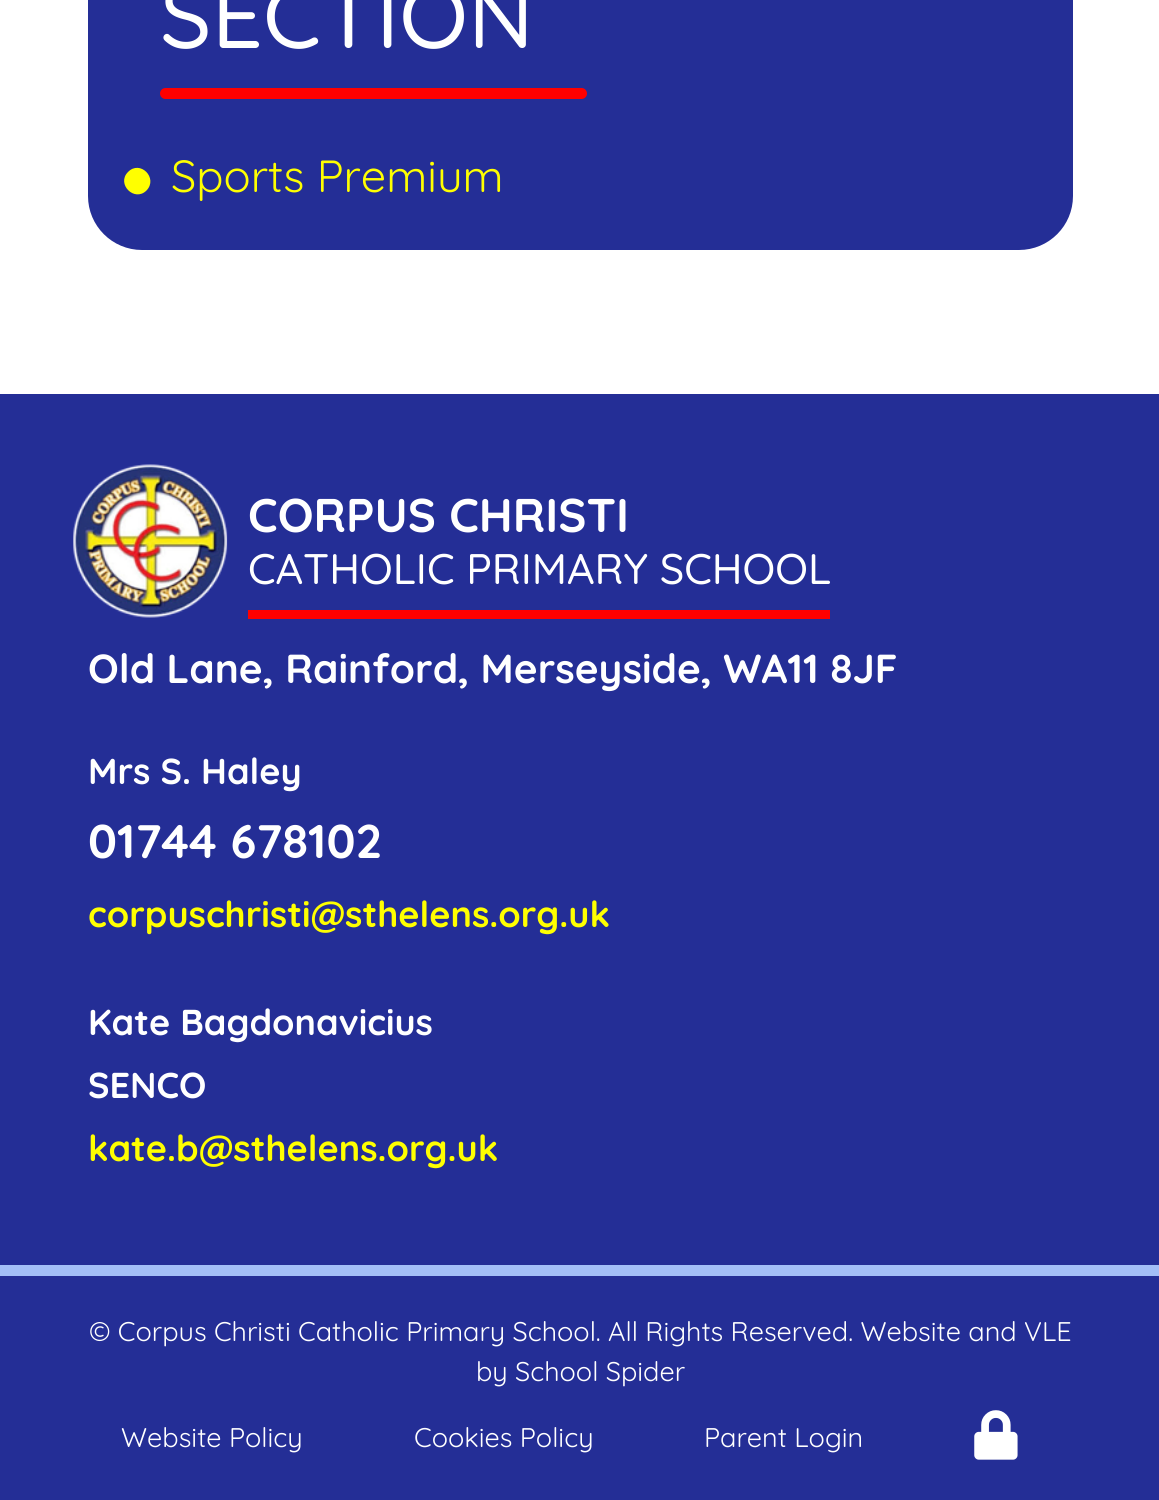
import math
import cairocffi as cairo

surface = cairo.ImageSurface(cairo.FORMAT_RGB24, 1159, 1500)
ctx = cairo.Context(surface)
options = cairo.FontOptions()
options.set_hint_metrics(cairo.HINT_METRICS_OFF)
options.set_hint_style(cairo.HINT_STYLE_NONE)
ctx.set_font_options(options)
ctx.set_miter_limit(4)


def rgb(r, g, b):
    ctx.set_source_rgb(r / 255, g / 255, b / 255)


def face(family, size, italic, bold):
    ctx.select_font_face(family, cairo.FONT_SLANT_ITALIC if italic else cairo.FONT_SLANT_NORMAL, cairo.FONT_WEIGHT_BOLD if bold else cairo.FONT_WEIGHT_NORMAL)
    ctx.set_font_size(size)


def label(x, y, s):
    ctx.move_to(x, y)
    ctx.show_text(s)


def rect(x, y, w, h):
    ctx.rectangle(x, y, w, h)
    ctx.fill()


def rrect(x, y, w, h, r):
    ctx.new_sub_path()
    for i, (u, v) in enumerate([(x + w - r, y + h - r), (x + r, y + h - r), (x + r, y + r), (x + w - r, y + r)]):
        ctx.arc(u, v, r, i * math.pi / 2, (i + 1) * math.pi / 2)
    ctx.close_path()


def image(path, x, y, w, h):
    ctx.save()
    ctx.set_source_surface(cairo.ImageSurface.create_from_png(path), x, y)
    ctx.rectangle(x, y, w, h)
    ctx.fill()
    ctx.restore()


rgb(255, 255, 255)
ctx.paint()
rgb(36, 46, 150)
rrect(88, -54, 985, 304, 54)
ctx.fill()
face('Quicksand Medium', 90, 0, 0)
rgb(255, 255, 255)
label(160, 48, 'SECTION')
rgb(255, 0, 0)
rrect(160, 88, 427, 11, 5.5)
ctx.fill()
rgb(255, 255, 0)
ctx.new_path()
ctx.move_to(128, 172)
ctx.curve_to(140, 159.5, 158.5, 178, 146.5, 190.5)
ctx.curve_to(134.5, 202.5, 116, 184, 128, 172)
ctx.close_path()
ctx.fill()
face('Quicksand', 45, 0, 0)
label(171, 192, 'Sports Premium')
rgb(163, 191, 247)
rect(0, 1265, 1159, 11)
rgb(36, 46, 150)
rect(0, 394, 1159, 871)
image('image0.png', 73, 464, 155, 154)
face('Quicksand', 47.25, 0, 1)
rgb(255, 255, 255)
label(248, 532, 'CORPUS CHRISTI')
face('Quicksand Medium', 42.75, 0, 0)
label(248, 584, 'CATHOLIC PRIMARY SCHOOL')
rgb(255, 0, 0)
rect(248, 610, 582, 9)
face('Quicksand', 40.5, 0, 1)
rgb(255, 255, 255)
label(88, 683, 'Old Lane, Rainford, Merseyside, WA11 8JF')
face('Quicksand', 36, 0, 1)
label(88, 784, 'Mrs S. Haley')
face('Quicksand', 47.25, 0, 1)
label(88, 858, '01744 678102')
face('Quicksand', 36, 0, 1)
rgb(255, 255, 0)
label(88, 927, 'corpuschristi@sthelens.org.uk')
rgb(255, 255, 255)
label(88, 1035, 'Kate Bagdonavicius')
label(88, 1098, 'SENCO')
rgb(255, 255, 0)
label(88, 1161, 'kate.b@sthelens.org.uk')
rgb(36, 46, 150)
rect(0, 1276, 1159, 224)
face('Quicksand', 27, 0, 0)
rgb(255, 255, 255)
label(89, 1341, '© Corpus Christi Catholic Primary School. All Rights Reserved. Website and VLE')
label(476, 1381, 'by School Spider')
label(121, 1447, 'Website Policy')
label(414, 1447, 'Cookies Policy')
label(704, 1447, 'Parent Login')
image('image1.png', 974, 1410, 44, 50)
surface.write_to_png('render.png')
